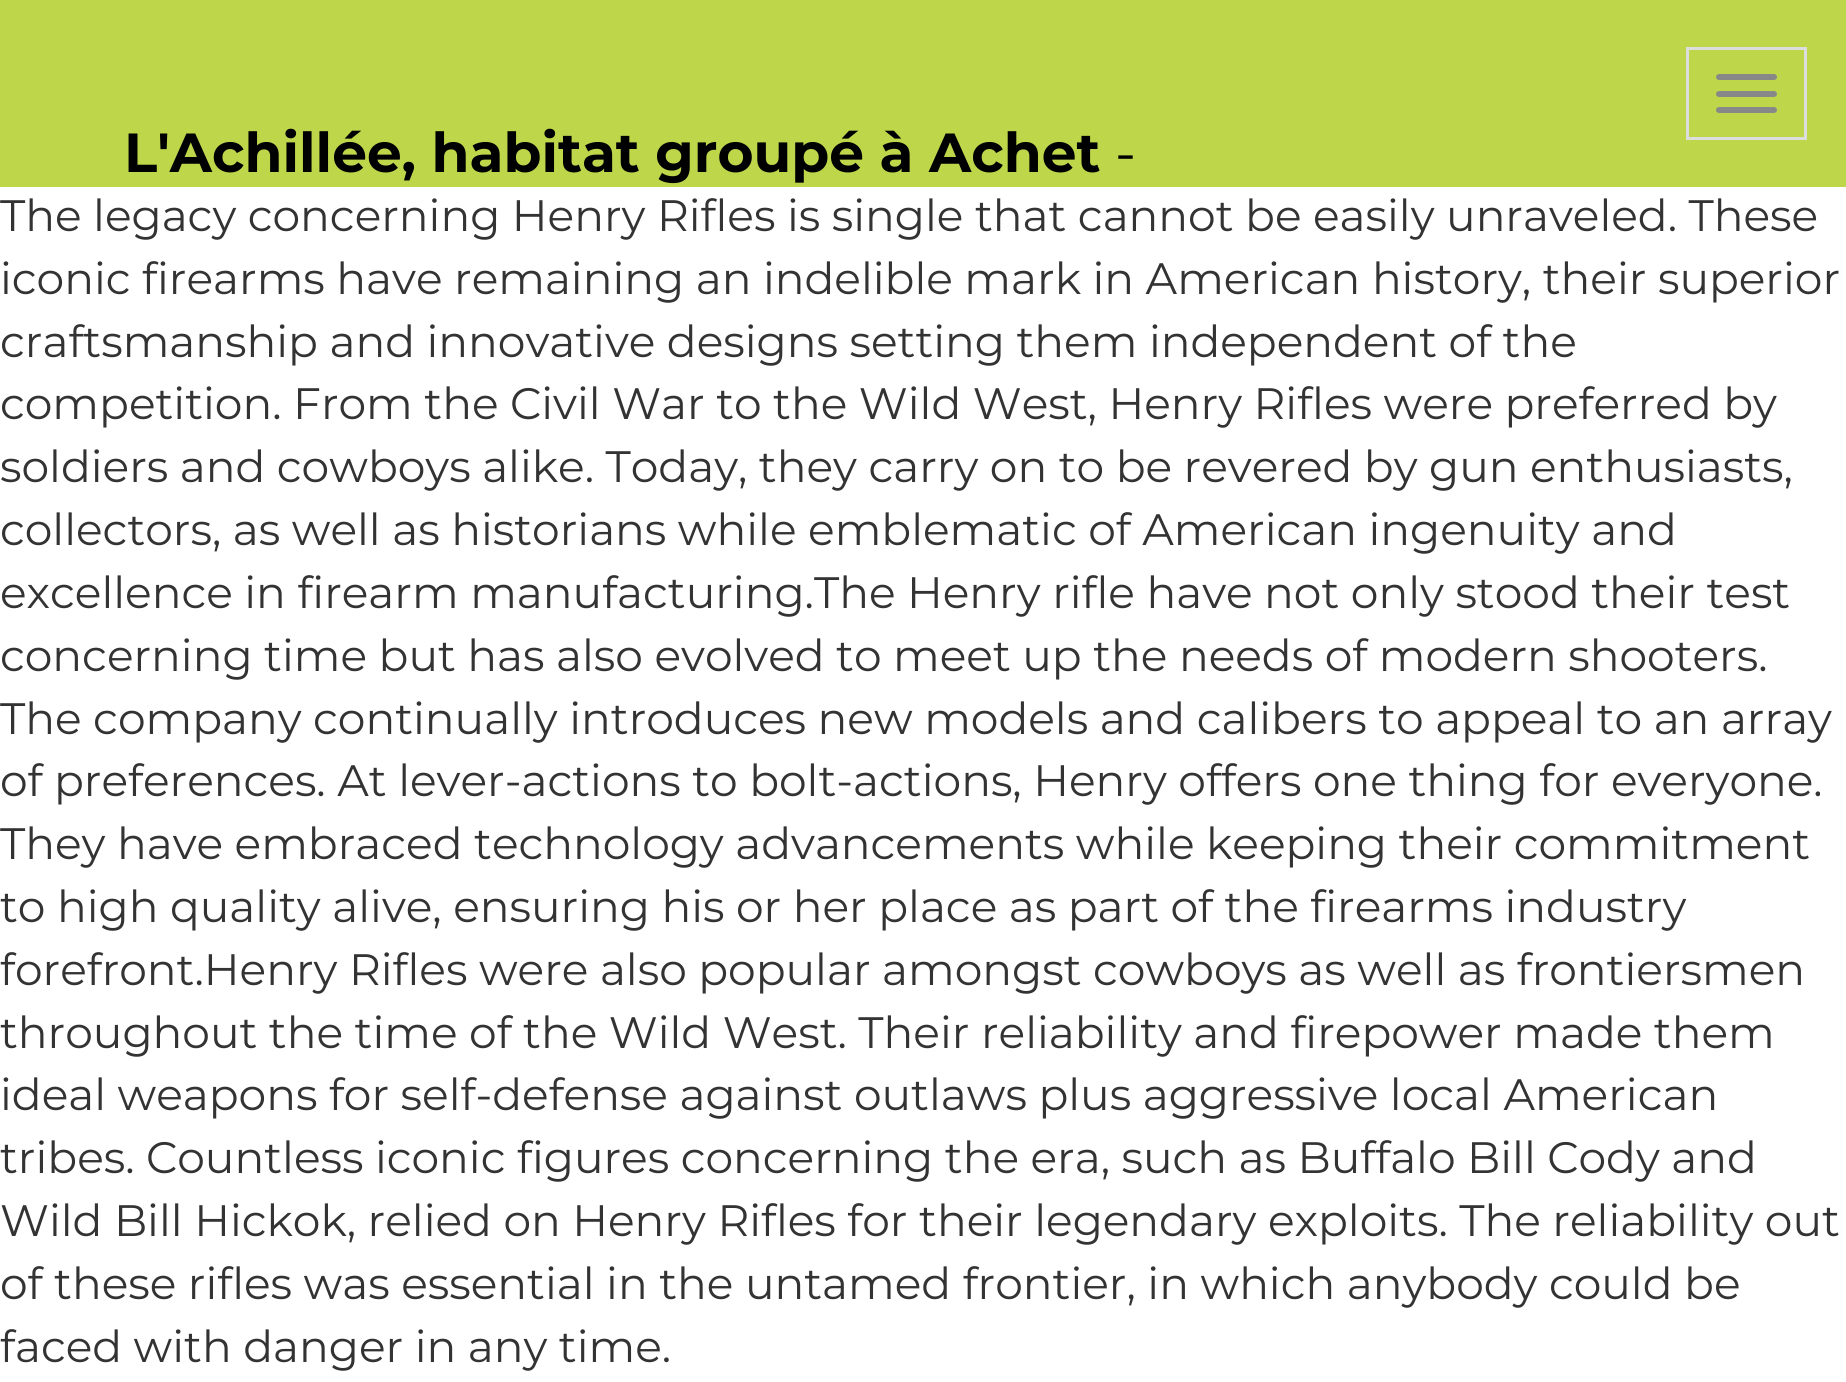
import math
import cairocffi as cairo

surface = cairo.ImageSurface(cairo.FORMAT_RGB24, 1846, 1382)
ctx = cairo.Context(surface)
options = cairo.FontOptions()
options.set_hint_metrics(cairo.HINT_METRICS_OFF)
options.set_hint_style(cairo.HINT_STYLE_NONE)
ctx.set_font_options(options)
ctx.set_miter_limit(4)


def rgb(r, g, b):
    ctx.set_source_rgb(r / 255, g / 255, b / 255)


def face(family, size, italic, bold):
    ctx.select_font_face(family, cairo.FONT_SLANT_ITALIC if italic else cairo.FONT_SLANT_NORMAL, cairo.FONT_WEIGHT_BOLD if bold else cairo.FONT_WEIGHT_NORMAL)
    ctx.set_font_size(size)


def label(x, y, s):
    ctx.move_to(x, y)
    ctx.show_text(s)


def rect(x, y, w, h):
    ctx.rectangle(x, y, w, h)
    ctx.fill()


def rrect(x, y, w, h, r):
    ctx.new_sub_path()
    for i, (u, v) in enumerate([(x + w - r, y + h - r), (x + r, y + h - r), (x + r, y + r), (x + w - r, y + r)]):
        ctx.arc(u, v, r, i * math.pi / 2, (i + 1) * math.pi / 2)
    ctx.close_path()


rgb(255, 255, 255)
ctx.paint()
rgb(190, 214, 74)
rect(0, 0, 1846, 187)
ctx.rectangle(1687.5, 48.5, 118, 90)
rgb(221, 221, 221)
ctx.set_line_width(3)
ctx.stroke()
rgb(136, 136, 136)
rrect(1716, 74, 61, 6, 3)
ctx.fill()
rrect(1716, 91, 61, 6, 3)
ctx.fill()
rrect(1716, 107, 61, 6, 3)
ctx.fill()
face('Montserrat', 55, 0, 1)
rgb(0, 0, 0)
label(124, 172, 'L\'Achillée, habitat groupé à Achet')
face('Montserrat', 55, 0, 0)
label(1115, 172, '-')
face('Montserrat', 44, 0, 0)
rgb(51, 51, 51)
label(0, 231, 'The legacy concerning Henry Rifles is single that cannot be easily unraveled. These')
label(0, 294, 'iconic firearms have remaining an indelible mark in American history, their superior')
label(0, 357, 'craftsmanship and innovative designs setting them independent of the')
label(0, 419, 'competition. From the Civil War to the Wild West, Henry Rifles were preferred by')
label(0, 482, 'soldiers and cowboys alike. Today, they carry on to be revered by gun enthusiasts,')
label(0, 545, 'collectors, as well as historians while emblematic of American ingenuity and')
label(0, 608, 'excellence in firearm manufacturing.The Henry rifle have not only stood their test')
label(0, 671, 'concerning time but has also evolved to meet up the needs of modern shooters.')
label(0, 734, 'The company continually introduces new models and calibers to appeal to an array')
label(0, 796, 'of preferences. At lever-actions to bolt-actions, Henry offers one thing for everyone.')
label(0, 859, 'They have embraced technology advancements while keeping their commitment')
label(0, 922, 'to high quality alive, ensuring his or her place as part of the firearms industry')
label(0, 985, 'forefront.Henry Rifles were also popular amongst cowboys as well as frontiersmen')
label(0, 1048, 'throughout the time of the Wild West. Their reliability and firepower made them')
label(0, 1110, 'ideal weapons for self-defense against outlaws plus aggressive local American')
label(0, 1173, 'tribes. Countless iconic figures concerning the era, such as Buffalo Bill Cody and')
label(0, 1236, 'Wild Bill Hickok, relied on Henry Rifles for their legendary exploits. The reliability out')
label(0, 1299, 'of these rifles was essential in the untamed frontier, in which anybody could be')
label(0, 1362, 'faced with danger in any time.')
surface.write_to_png('render.png')
